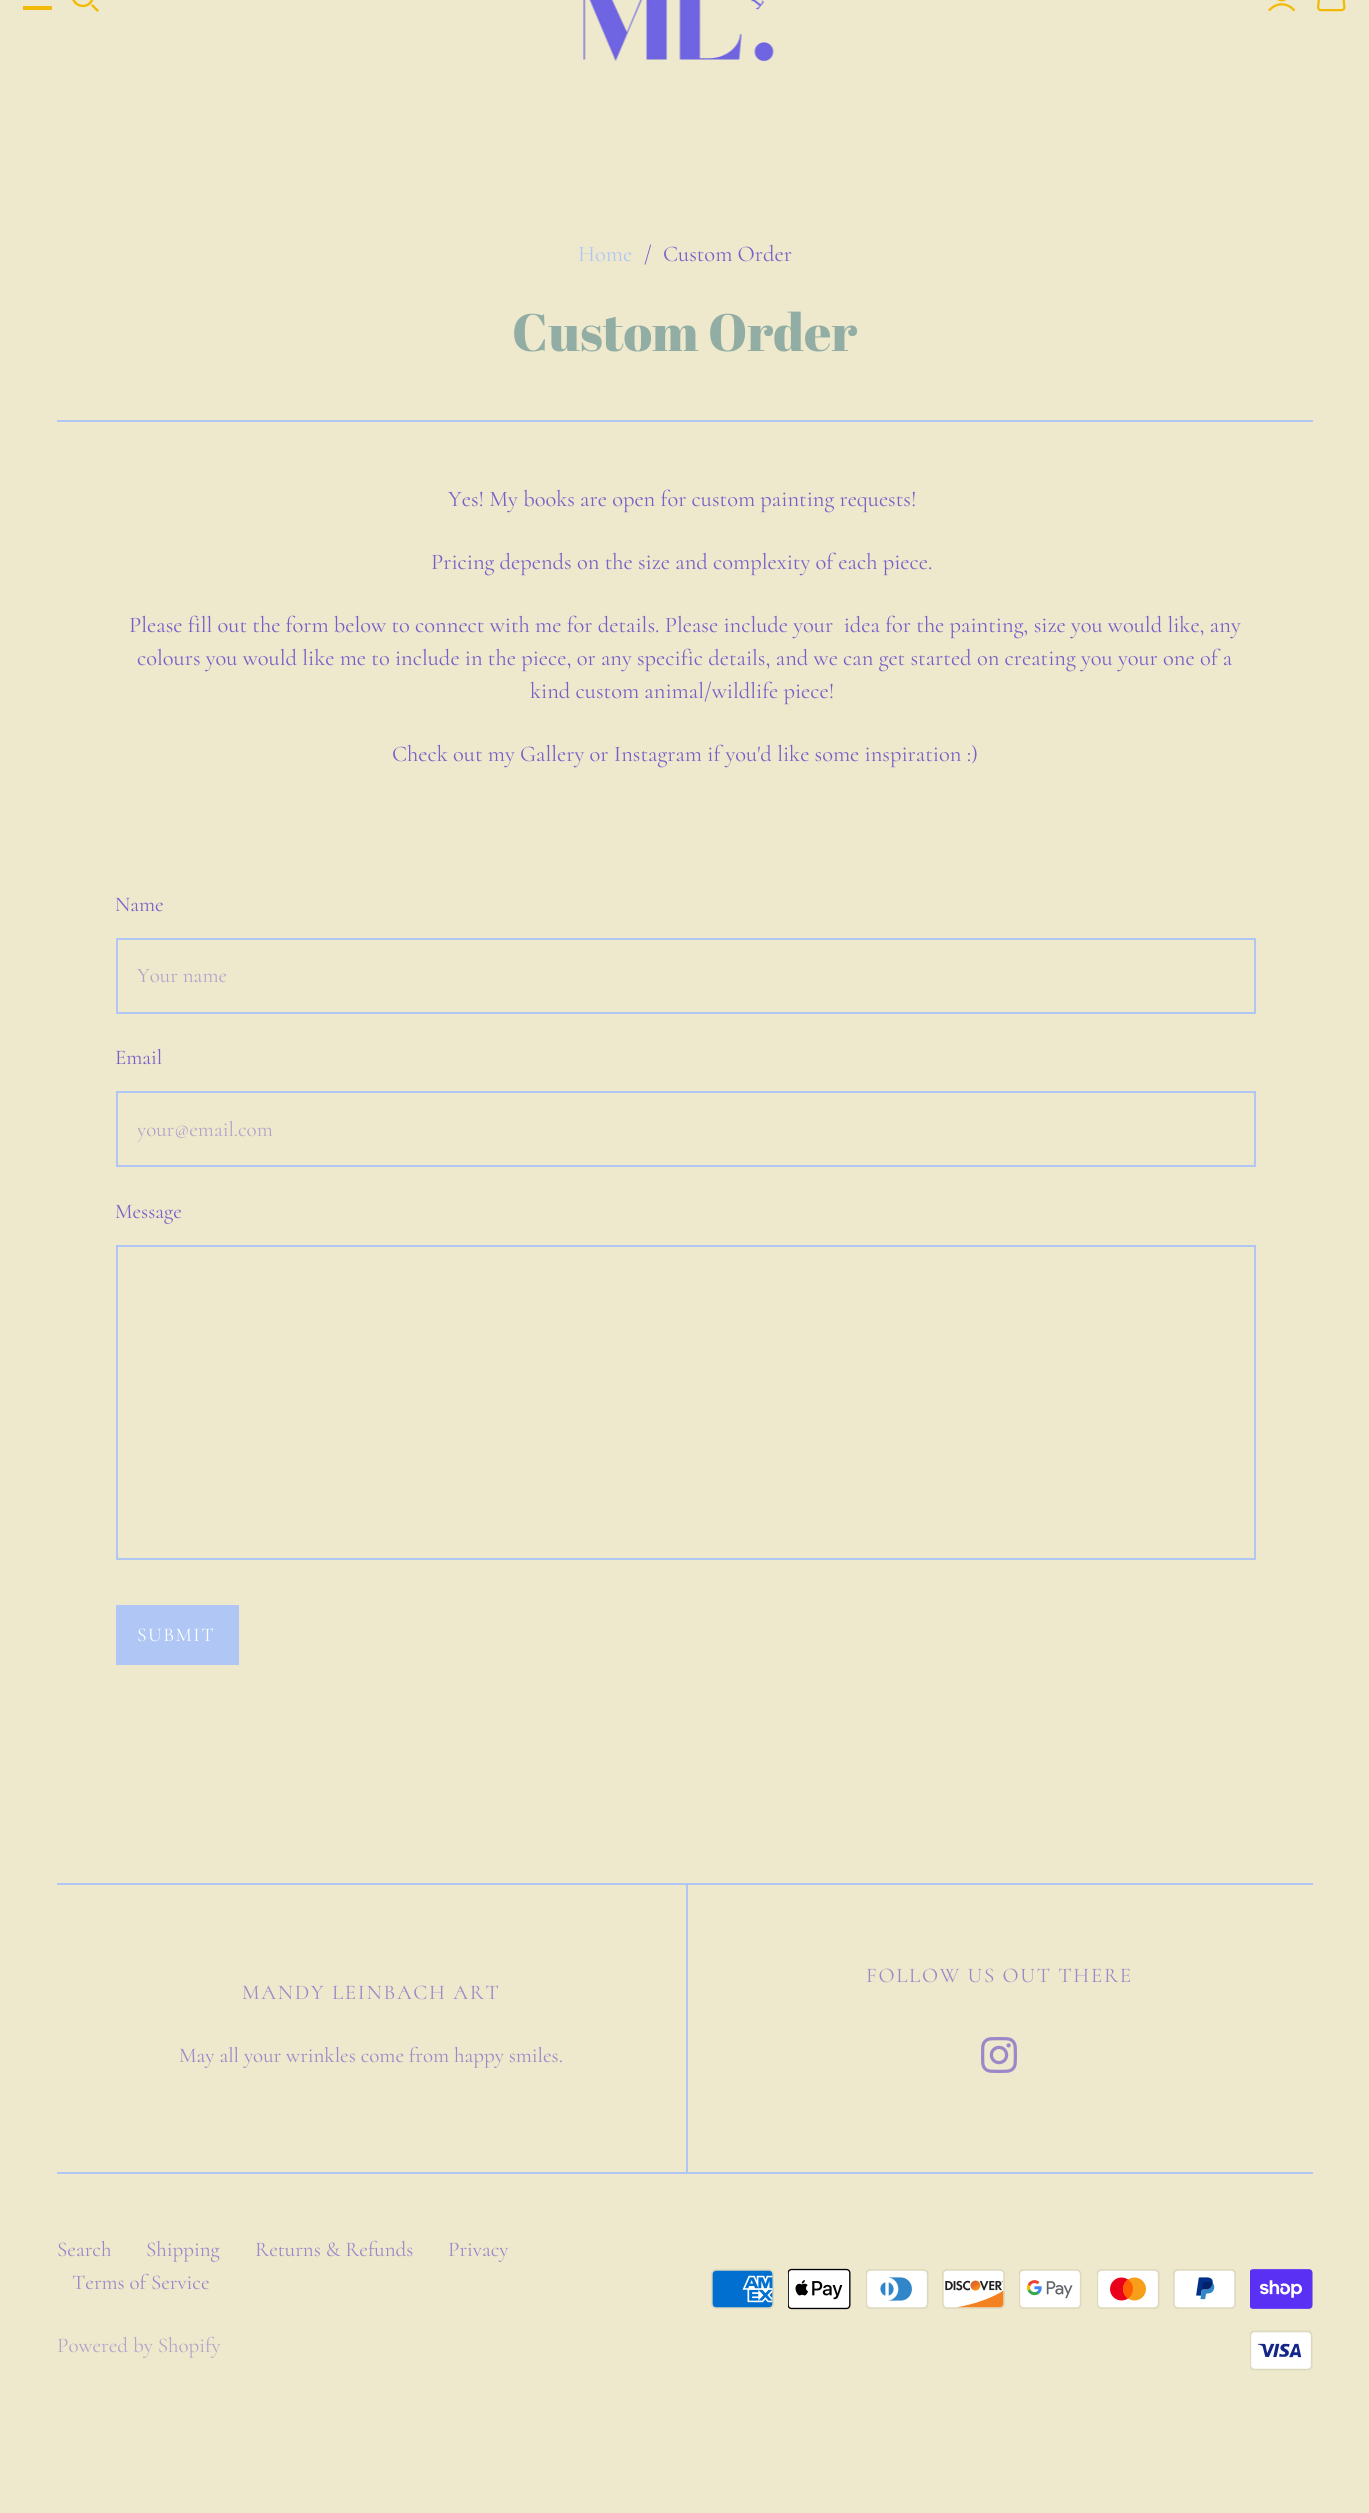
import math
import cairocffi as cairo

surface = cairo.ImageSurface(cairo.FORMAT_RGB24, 1369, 2513)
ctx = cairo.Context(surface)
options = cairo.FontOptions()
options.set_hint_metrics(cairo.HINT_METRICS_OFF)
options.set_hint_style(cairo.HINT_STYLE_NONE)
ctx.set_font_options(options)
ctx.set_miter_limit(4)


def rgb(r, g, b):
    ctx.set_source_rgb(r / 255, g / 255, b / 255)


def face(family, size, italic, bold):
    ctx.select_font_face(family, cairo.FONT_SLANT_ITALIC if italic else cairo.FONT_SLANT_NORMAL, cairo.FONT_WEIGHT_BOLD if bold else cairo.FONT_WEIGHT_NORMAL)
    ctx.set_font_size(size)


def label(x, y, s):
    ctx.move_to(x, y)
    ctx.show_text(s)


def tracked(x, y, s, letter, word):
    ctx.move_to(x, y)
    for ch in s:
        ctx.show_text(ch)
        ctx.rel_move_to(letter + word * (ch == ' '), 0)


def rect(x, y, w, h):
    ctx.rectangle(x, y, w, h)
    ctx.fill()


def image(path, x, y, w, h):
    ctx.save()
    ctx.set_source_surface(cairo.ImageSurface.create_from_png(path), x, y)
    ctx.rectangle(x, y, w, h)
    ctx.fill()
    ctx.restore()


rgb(238, 233, 204)
ctx.paint()
rgb(242, 186, 4)
rect(23, 6, 29, 4)
image('image0.png', 72, 0, 27, 12)
image('image1.png', 1268, 0, 28, 12)
image('image2.png', 1317, 0, 29, 12)
image('image3.png', 583, 0, 191, 61)
face('Cormorant', 22.5, 0, 0)
rgb(176, 198, 245)
label(578, 261, 'Home')
rgb(121, 94, 201)
label(644, 261, '/')
label(663, 261, 'Custom Order')
rgb(176, 198, 245)
rect(57, 420, 1256, 2)
face('Abril Fatface', 52.5, 0, 0)
rgb(146, 173, 164)
label(512, 351, 'Custom Order')
face('Cormorant', 22.5, 0, 0)
rgb(121, 94, 201)
label(448, 506, 'Yes! My books are open for custom painting requests!')
label(431, 569, 'Pricing depends on the size and complexity of each piece.')
label(129, 632, 'Please fill out the form below to connect with me for details. Please include your  idea for the painting, size you would like, any')
label(137, 665, 'colours you would like me to include in the piece, or any specific details, and we can get started on creating you your one of a')
label(530, 698, 'kind custom animal/wildlife piece!')
label(392, 761, 'Check out my Gallery or Instagram if you\'d like some inspiration :)')
face('Cormorant', 21, 0, 0)
label(115, 911, 'Name')
ctx.rectangle(117, 939, 1138, 74)
rgb(176, 198, 245)
ctx.stroke()
rgb(179, 163, 202)
label(137, 982, 'Your name')
rgb(121, 94, 201)
label(115, 1064, 'Email')
ctx.rectangle(117, 1092, 1138, 74)
rgb(176, 198, 245)
ctx.stroke()
ctx.save()
ctx.rectangle(138, 1116, 1095, 26)
ctx.clip()
rgb(179, 163, 202)
label(137, 1136, 'your@email.com')
ctx.restore()
rgb(121, 94, 201)
label(115, 1218, 'Message')
ctx.rectangle(117, 1246, 1138, 313)
rgb(176, 198, 245)
ctx.stroke()
rect(116, 1605, 123, 60)
face('Cormorant', 19.5, 0, 0)
rgb(255, 255, 255)
tracked(137, 1641, 'SUBMIT', 1.5, 0)
rgb(176, 198, 245)
rect(57, 1883, 1256, 2)
rect(57, 2172, 1256, 2)
rect(686, 1884, 2, 288)
face('Cormorant', 21, 0, 0)
rgb(156, 135, 201)
tracked(866, 1982, 'FOLLOW US OUT THERE', 1.7, 0)
image('image4.png', 981, 2037, 36, 36)
tracked(242, 1999, 'MANDY LEINBACH ART', 1.7, 0)
label(179, 2062, 'May all your wrinkles come from happy smiles.')
label(57, 2256, 'Search')
label(146, 2256, 'Shipping')
label(255, 2256, 'Returns & Refunds')
label(448, 2256, 'Privacy')
label(72, 2289, 'Terms of Service')
rgb(179, 163, 202)
label(57, 2352, 'Powered by Shopify')
image('image5.png', 711, 2269, 63, 40)
image('image6.png', 788, 2268, 63, 42)
image('image7.png', 866, 2269, 63, 40)
image('image8.png', 942, 2269, 63, 40)
image('image9.png', 1019, 2269, 63, 40)
image('image10.png', 1097, 2269, 63, 40)
image('image11.png', 1173, 2269, 63, 40)
image('image12.png', 1250, 2269, 63, 40)
image('image13.png', 1250, 2330, 63, 41)
surface.write_to_png('render.png')
